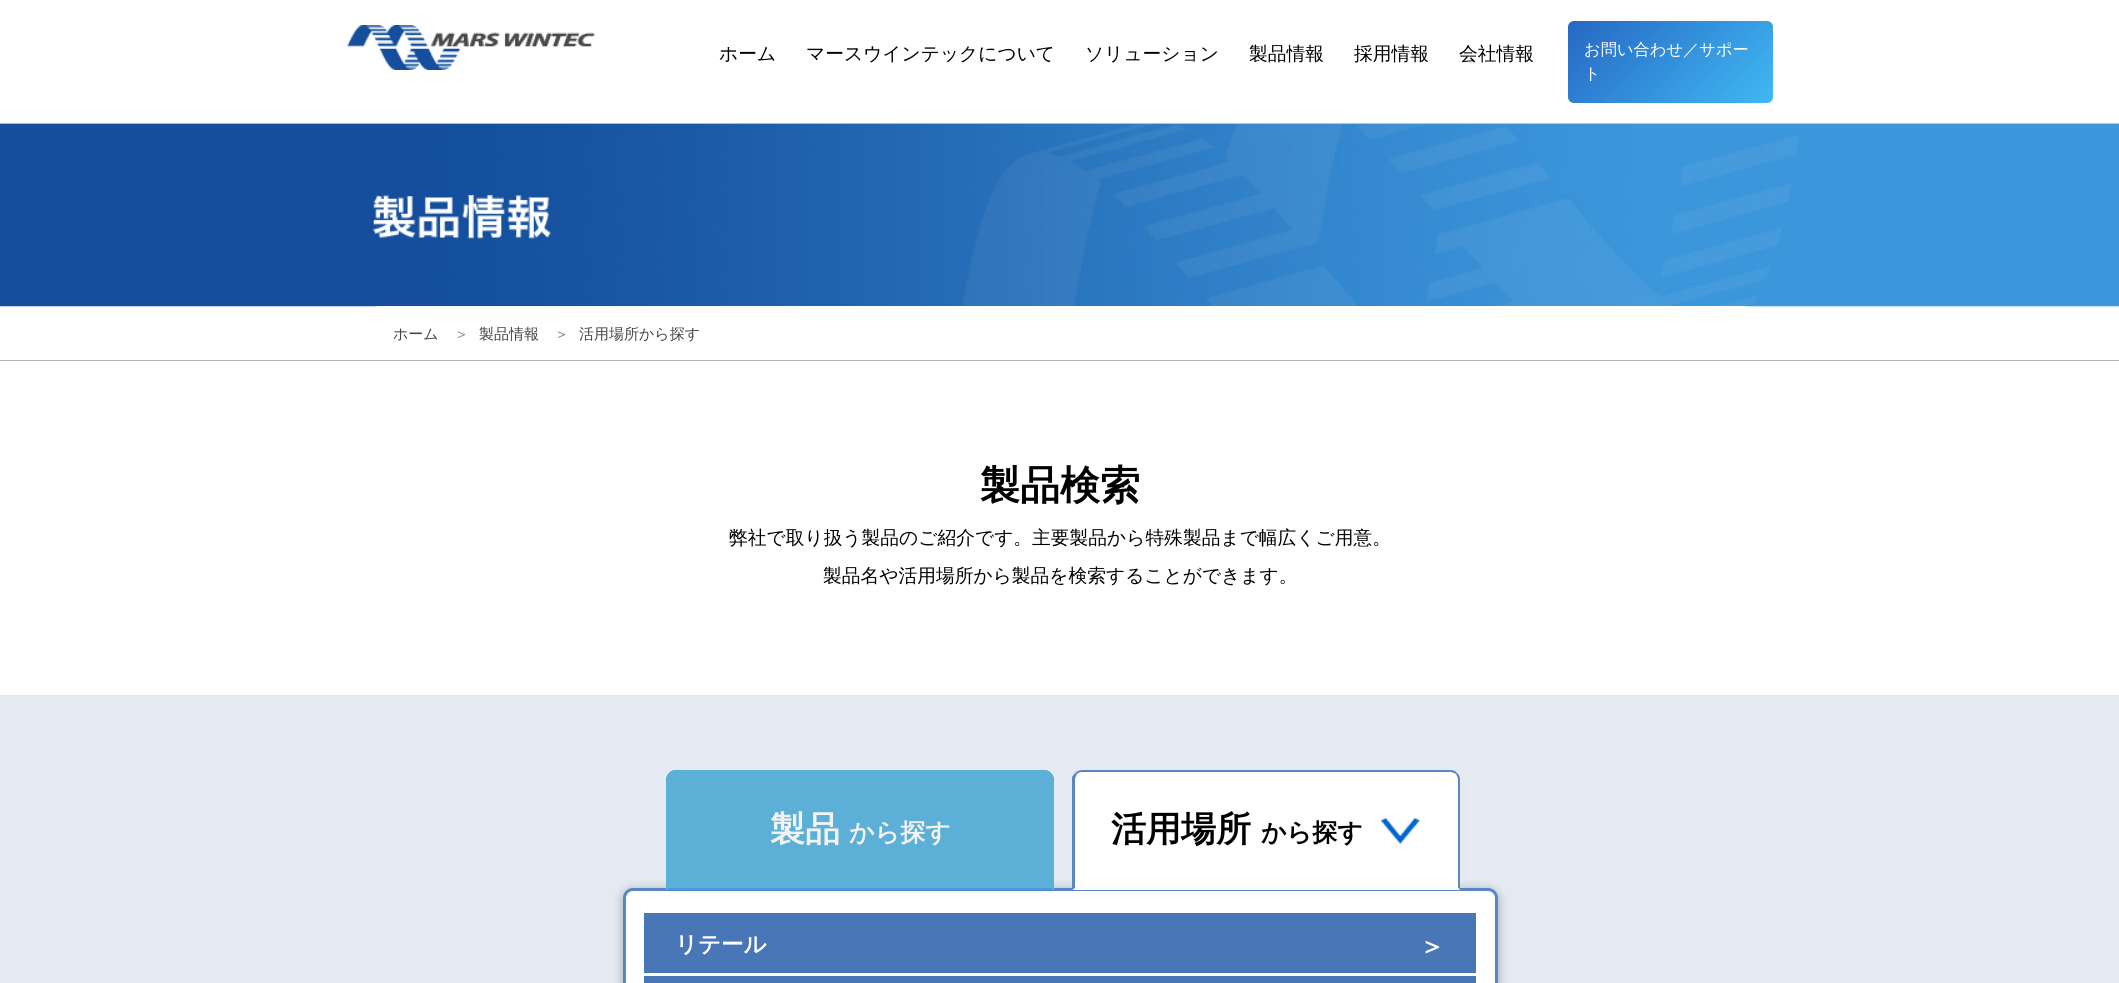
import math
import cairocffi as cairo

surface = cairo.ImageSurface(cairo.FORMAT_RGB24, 2119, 983)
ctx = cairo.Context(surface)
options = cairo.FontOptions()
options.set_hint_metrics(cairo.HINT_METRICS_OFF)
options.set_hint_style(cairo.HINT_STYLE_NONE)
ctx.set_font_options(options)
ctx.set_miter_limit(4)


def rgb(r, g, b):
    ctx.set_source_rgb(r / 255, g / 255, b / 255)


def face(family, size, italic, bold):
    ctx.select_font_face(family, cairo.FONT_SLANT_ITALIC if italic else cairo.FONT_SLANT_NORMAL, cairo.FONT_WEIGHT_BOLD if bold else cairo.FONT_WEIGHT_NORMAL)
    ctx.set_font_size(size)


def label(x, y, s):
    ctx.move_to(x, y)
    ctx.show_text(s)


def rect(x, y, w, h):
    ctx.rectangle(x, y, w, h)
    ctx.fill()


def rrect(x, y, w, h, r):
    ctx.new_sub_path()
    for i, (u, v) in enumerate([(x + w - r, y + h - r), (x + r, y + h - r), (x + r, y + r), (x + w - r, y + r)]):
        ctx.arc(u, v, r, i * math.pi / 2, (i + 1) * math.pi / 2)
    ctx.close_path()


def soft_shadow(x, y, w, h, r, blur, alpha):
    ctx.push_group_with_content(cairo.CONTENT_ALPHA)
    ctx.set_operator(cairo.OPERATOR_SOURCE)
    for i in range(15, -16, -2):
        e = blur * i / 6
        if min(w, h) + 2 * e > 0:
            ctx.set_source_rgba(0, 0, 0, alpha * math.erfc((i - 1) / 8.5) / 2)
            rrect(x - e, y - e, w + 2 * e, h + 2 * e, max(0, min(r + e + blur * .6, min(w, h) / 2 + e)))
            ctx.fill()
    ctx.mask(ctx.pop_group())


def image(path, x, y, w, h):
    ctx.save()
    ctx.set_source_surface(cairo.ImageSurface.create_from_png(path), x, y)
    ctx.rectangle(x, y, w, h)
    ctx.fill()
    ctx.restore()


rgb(255, 255, 255)
ctx.paint()
rgb(221, 221, 221)
rect(0, 123, 2119, 1)
image('image0.png', 347, 25, 248, 45)
face('WenQuanYi Zen Hei Medium', 18.75, 0, 0)
rgb(0, 0, 0)
label(719, 60, 'ホーム')
label(806, 60, 'マースウインテックについて')
label(1085, 60, 'ソリューション')
label(1249, 60, '製品情報')
label(1354, 60, '採用情報')
label(1459, 60, '会社情報')
gradient = cairo.LinearGradient(1598, -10, 1742, 133)
gradient.add_color_stop_rgba(0, 0.149, 0.404, 0.765, 1)
gradient.add_color_stop_rgba(1, 0.251, 0.722, 0.953, 1)
ctx.set_source(gradient)
rrect(1568, 21, 205, 82, 6)
ctx.fill()
face('WenQuanYi Zen Hei Medium', 16.25, 0, 0)
rgb(255, 255, 255)
label(1584, 55, 'お問い合わせ／サポー')
label(1584, 79, 'ト')
image('image1.png', 0, 123, 2119, 184)
image('image2.png', 372, 195, 180, 44)
rgb(178, 178, 178)
rect(0, 360, 2119, 1)
rgb(255, 255, 255)
rrect(373, 306, 1375, 54, 5)
ctx.fill()
face('WenQuanYi Zen Hei Medium', 15, 0, 0)
rgb(68, 68, 68)
label(393, 339, 'ホーム')
rgb(121, 121, 121)
label(454, 339, '＞')
rgb(68, 68, 68)
label(479, 339, '製品情報')
rgb(121, 121, 121)
label(554, 339, '＞')
rgb(68, 68, 68)
label(579, 339, '活用場所から探す')
face('WenQuanYi Zen Hei', 40, 0, 1)
rgb(0, 0, 0)
label(980, 499, '製品検索')
face('WenQuanYi Zen Hei Medium', 18.75, 0, 0)
label(729, 544, '弊社で取り扱う製品のご紹介です。主要製品から特殊製品まで幅広くご用意。')
label(823, 582, '製品名や活用場所から製品を検索することができます。')
rgb(228, 233, 242)
rect(0, 695, 2119, 288)
rgb(0, 0, 0)
soft_shadow(623, 890, 875, 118, 10, 5, 0.3)
rgb(255, 255, 255)
rrect(624.5, 889.5, 872, 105, 8.5)
ctx.fill_preserve()
rgb(90, 134, 196)
ctx.set_line_width(3)
ctx.stroke()
rgb(92, 175, 214)
ctx.new_path()
ctx.move_to(676, 770)
ctx.line_to(1044, 770)
ctx.curve_to(1049.5, 770, 1054, 774.5, 1054, 780)
ctx.line_to(1054, 890)
ctx.line_to(666, 890)
ctx.line_to(666, 780)
ctx.curve_to(666, 774.5, 670.5, 770, 676, 770)
ctx.close_path()
ctx.fill()
ctx.new_path()
ctx.move_to(676, 770)
ctx.curve_to(673, 770, 671, 771, 669, 773)
ctx.line_to(671, 775)
ctx.curve_to(672, 773, 674, 772, 676, 772)
ctx.line_to(1044, 772)
ctx.curve_to(1046, 772, 1048, 773, 1049, 775)
ctx.line_to(1051, 773)
ctx.curve_to(1049, 771, 1047, 770, 1044, 770)
ctx.close_path()
ctx.fill()
ctx.new_path()
ctx.move_to(1054, 778)
ctx.line_to(1054, 890)
ctx.line_to(1051, 887)
ctx.line_to(1051, 780)
ctx.curve_to(1051, 778, 1050, 776, 1049, 775)
ctx.line_to(1051, 773)
ctx.curve_to(1052, 774, 1053, 776, 1054, 778)
ctx.close_path()
ctx.fill()
rgb(64, 158, 226)
ctx.new_path()
ctx.move_to(1054, 890)
ctx.line_to(1051, 887)
ctx.line_to(1051, 888)
ctx.line_to(669, 888)
ctx.line_to(669, 887)
ctx.line_to(666, 890)
ctx.close_path()
ctx.fill()
rgb(92, 175, 214)
ctx.new_path()
ctx.move_to(666, 890)
ctx.line_to(666, 778)
ctx.curve_to(667, 776, 668, 774, 669, 773)
ctx.line_to(671, 775)
ctx.curve_to(670, 776, 669, 778, 669, 780)
ctx.line_to(669, 887)
ctx.close_path()
ctx.fill()
face('WenQuanYi Zen Hei', 35, 0, 1)
rgb(242, 242, 242)
label(770, 841, '製品')
face('WenQuanYi Zen Hei', 25, 0, 1)
label(849, 841, 'から探す')
rgb(255, 255, 255)
ctx.new_path()
ctx.move_to(1083, 770)
ctx.line_to(1450, 770)
ctx.curve_to(1455.5, 770, 1460, 774.5, 1460, 780)
ctx.line_to(1460, 890)
ctx.line_to(1073, 890)
ctx.line_to(1073, 780)
ctx.curve_to(1073, 774.5, 1077.5, 770, 1083, 770)
ctx.close_path()
ctx.fill()
rgb(90, 134, 196)
ctx.new_path()
ctx.move_to(1082, 770)
ctx.curve_to(1080, 770, 1077, 771, 1075, 773)
ctx.line_to(1077, 774)
ctx.curve_to(1078, 773, 1080, 772, 1082, 772)
ctx.line_to(1450, 772)
ctx.curve_to(1452, 772, 1454, 773, 1456, 774)
ctx.line_to(1457, 773)
ctx.curve_to(1456, 771, 1453, 770, 1450, 770)
ctx.close_path()
ctx.fill()
ctx.new_path()
ctx.move_to(1460, 890)
ctx.line_to(1460, 780)
ctx.curve_to(1460, 777, 1459, 774, 1457, 773)
ctx.line_to(1456, 774)
ctx.curve_to(1457, 776, 1458, 778, 1458, 780)
ctx.line_to(1458, 888)
ctx.close_path()
ctx.fill()
rgb(255, 255, 255)
ctx.new_path()
ctx.move_to(1460, 890)
ctx.line_to(1458, 888)
ctx.line_to(1075, 888)
ctx.line_to(1072, 890)
ctx.close_path()
ctx.fill()
rgb(90, 134, 196)
ctx.new_path()
ctx.move_to(1072, 890)
ctx.line_to(1072, 777)
ctx.line_to(1075, 773)
ctx.line_to(1077, 774)
ctx.curve_to(1076, 776, 1075, 778, 1075, 780)
ctx.line_to(1075, 888)
ctx.close_path()
ctx.fill()
face('WenQuanYi Zen Hei', 35, 0, 1)
rgb(0, 0, 0)
label(1111, 841, '活用場所')
face('WenQuanYi Zen Hei', 25, 0, 1)
label(1261, 841, 'から探す')
image('image3.png', 1381, 817, 39, 27)
rgb(73, 118, 182)
rect(644, 913, 832, 60)
face('WenQuanYi Zen Hei', 22.5, 0, 1)
rgb(255, 255, 255)
label(675, 952, 'リテール')
face('WenQuanYi Zen Hei', 26, 0, 1)
label(1419, 955, '＞')
rgb(73, 118, 182)
rect(644, 976, 832, 7)
surface.write_to_png('render.png')
